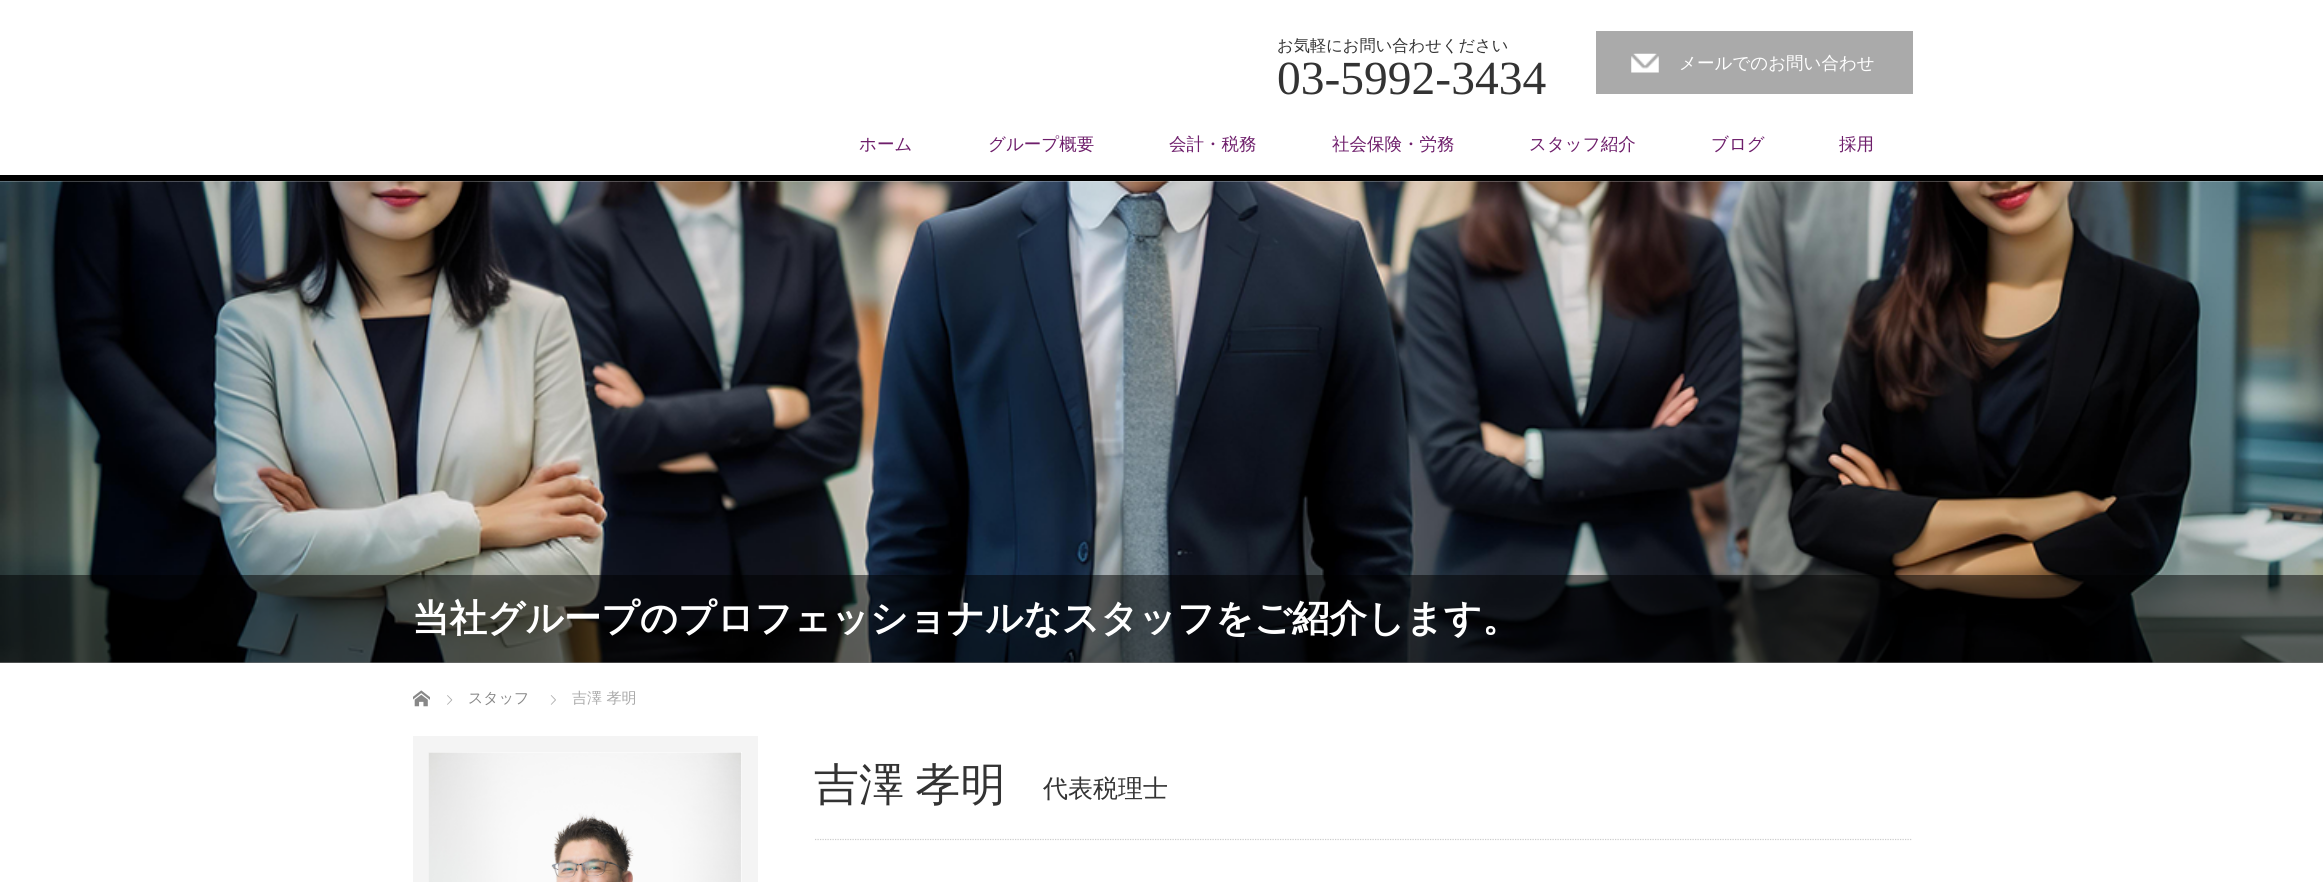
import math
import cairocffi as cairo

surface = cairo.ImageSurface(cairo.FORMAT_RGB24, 2323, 882)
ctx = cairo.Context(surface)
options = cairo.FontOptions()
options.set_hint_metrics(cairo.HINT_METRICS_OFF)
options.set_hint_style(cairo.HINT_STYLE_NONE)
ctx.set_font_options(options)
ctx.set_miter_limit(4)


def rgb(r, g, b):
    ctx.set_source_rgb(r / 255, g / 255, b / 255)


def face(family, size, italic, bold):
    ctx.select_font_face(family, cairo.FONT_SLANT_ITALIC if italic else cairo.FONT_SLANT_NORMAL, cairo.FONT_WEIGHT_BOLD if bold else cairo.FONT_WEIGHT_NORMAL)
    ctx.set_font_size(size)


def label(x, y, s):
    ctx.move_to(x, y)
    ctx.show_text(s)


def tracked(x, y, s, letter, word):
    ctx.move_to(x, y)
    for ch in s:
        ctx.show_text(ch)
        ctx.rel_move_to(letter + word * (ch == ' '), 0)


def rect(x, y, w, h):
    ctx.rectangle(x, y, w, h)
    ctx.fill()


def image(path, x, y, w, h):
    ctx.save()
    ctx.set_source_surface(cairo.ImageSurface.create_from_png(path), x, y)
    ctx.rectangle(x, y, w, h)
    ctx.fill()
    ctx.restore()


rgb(255, 255, 255)
ctx.paint()
rgb(0, 0, 0)
rect(0, 175, 2323, 6)
face('WenQuanYi Zen Hei Medium', 16.25, 0, 0)
rgb(51, 51, 51)
label(1277, 51, 'お気軽にお問い合わせください')
face('Liberation Serif', 47.5, 0, 0)
label(1277, 94, '03-5992-3434')
rgb(170, 170, 170)
rect(1596, 31, 317, 63)
image('image0.png', 1631, 53, 28, 20)
face('WenQuanYi Zen Hei Medium', 17.5, 0, 0)
rgb(255, 255, 255)
label(1679, 69, 'メールでのお問い合わせ')
rgb(110, 30, 107)
label(859, 150, 'ホーム')
label(988, 150, 'グループ概要')
label(1169, 150, '会計・税務')
label(1332, 150, '社会保険・労務')
label(1529, 150, 'スタッフ紹介')
label(1711, 150, 'ブログ')
label(1839, 150, '採用')
image('image1.png', 0, 181, 2323, 482)
ctx.set_source_rgba(0, 0, 0, 0.5)
rect(0, 575, 2323, 88)
face('WenQuanYi Zen Hei', 37.5, 0, 1)
rgb(255, 255, 255)
label(412, 631, '当社グループのプロフェッショナルなスタッフをご紹介します。')
image('image2.png', 413, 690, 17, 17)
image('image3.png', 447, 695, 6, 10)
face('WenQuanYi Zen Hei Medium', 15, 0, 0)
rgb(136, 136, 136)
label(468, 703, 'スタッフ')
image('image4.png', 550, 695, 6, 10)
rgb(170, 170, 170)
label(572, 703, '吉澤 孝明')
ctx.rectangle(421, 744, 329, 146)
rgb(244, 244, 244)
ctx.set_line_width(16)
ctx.stroke()
image('image5.png', 428, 752, 314, 130)
ctx.new_path()
ctx.move_to(815, 839.5)
ctx.line_to(1912.5, 839.5)
rgb(204, 204, 204)
ctx.set_line_width(1.2)
ctx.set_dash([1.25, 1.25])
ctx.stroke()
face('WenQuanYi Zen Hei Medium', 45, 0, 0)
rgb(51, 51, 51)
tracked(814, 800, '吉澤 孝明', 0, -2)
face('WenQuanYi Zen Hei Medium', 25, 0, 0)
label(1043, 797, '代表税理士')
surface.write_to_png('render.png')
